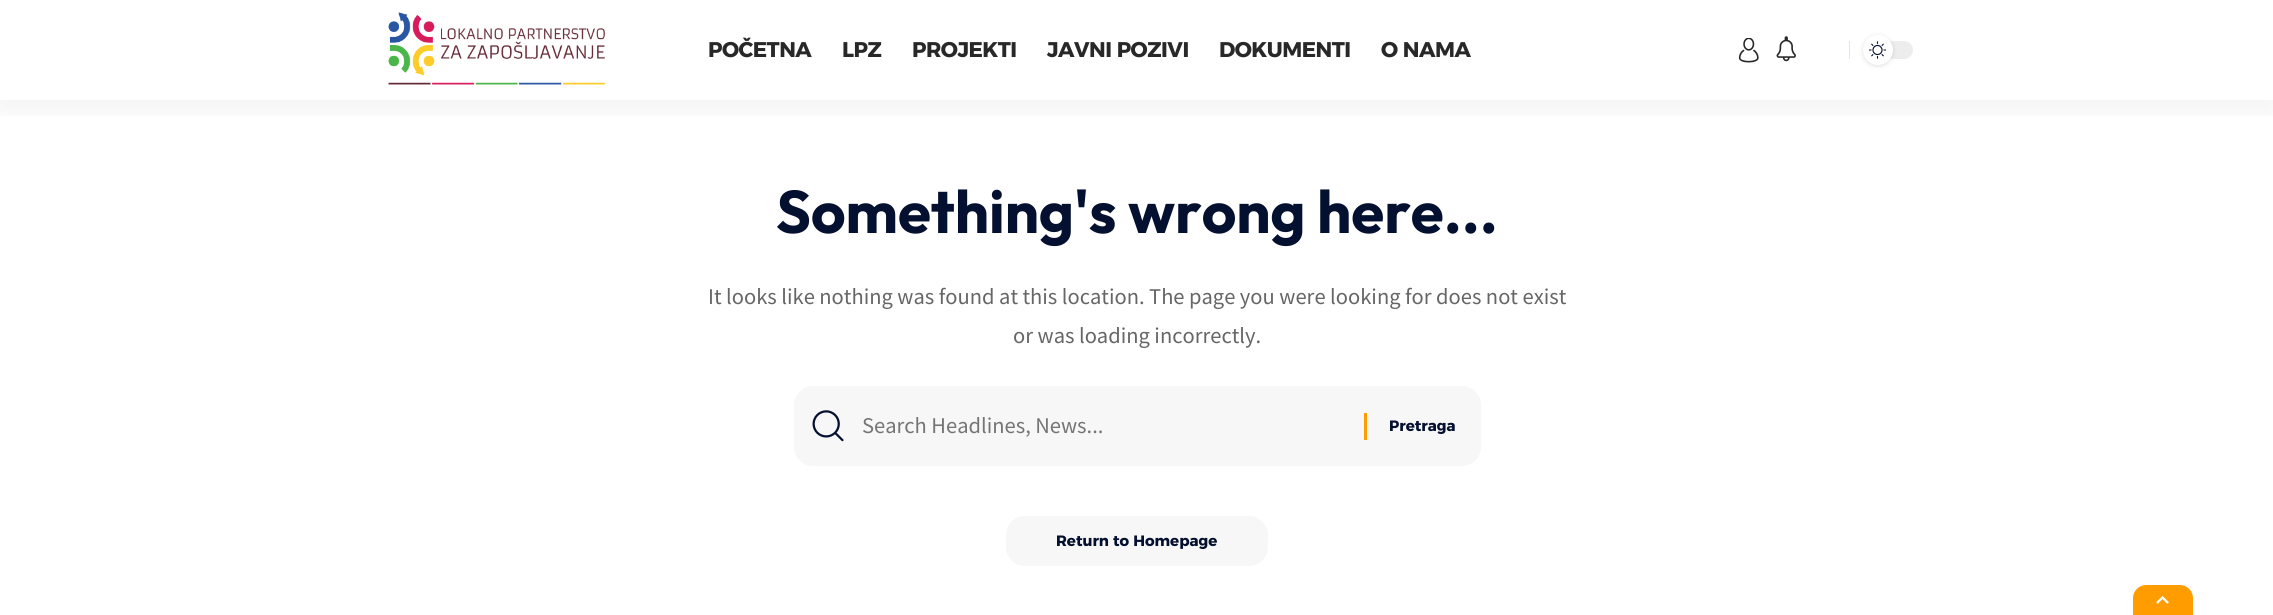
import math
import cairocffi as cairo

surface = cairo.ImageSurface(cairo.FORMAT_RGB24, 2273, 615)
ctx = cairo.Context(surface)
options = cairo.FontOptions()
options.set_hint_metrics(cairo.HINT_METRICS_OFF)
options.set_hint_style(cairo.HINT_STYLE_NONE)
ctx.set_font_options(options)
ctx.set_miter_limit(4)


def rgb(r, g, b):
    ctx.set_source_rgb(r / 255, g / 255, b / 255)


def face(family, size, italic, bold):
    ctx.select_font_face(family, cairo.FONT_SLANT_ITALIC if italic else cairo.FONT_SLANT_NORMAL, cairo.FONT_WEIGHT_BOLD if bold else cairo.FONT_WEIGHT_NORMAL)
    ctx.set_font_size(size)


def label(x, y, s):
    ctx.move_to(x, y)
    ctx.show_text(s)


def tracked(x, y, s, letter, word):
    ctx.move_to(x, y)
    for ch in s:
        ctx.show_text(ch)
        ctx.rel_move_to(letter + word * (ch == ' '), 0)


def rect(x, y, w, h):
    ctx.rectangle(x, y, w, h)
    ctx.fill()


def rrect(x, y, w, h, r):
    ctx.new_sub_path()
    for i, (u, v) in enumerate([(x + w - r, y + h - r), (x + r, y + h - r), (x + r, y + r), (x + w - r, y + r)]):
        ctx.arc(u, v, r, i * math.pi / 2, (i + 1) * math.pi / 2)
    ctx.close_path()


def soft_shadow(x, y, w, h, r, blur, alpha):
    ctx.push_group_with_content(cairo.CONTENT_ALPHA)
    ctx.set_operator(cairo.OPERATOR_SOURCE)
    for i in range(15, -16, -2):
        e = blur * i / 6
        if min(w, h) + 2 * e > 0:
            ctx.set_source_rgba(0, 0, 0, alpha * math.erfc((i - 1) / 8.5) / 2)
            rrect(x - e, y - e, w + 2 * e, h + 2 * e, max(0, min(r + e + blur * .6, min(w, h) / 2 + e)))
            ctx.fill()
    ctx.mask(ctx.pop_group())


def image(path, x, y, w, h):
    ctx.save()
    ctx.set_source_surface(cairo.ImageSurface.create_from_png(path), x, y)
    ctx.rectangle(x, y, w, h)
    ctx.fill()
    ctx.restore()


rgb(255, 255, 255)
ctx.paint()
ctx.save()
ctx.rectangle(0, 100, 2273, 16)
ctx.clip()
rgb(0, 0, 0)
soft_shadow(0, 5, 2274, 100, 0, 19, 0.07)
ctx.restore()
image('image0.png', 388, 12, 217, 73)
face('Alexandria', 21.25, 0, 1)
rgb(40, 40, 40)
tracked(708, 57, 'POČETNA', -0.5, 0)
tracked(842, 57, 'LPZ', -0.5, 0)
tracked(912, 57, 'PROJEKTI', -0.5, 0)
tracked(1047, 57, 'JAVNI POZIVI', -0.5, 0)
tracked(1219, 57, 'DOKUMENTI', -0.5, 0)
tracked(1381, 57, 'O NAMA', -0.5, 0)
image('image1.png', 1738, 38, 21, 25)
image('image2.png', 1776, 36, 20, 26)
rgb(228, 228, 228)
rect(1849, 41, 1, 18)
rgb(237, 237, 237)
rrect(1863, 41, 50, 18, 9)
ctx.fill()
rgb(0, 0, 0)
soft_shadow(1863, 36, 30, 30, 15, 2.5, 0.12)
rgb(255, 255, 255)
ctx.arc(1878, 50, 15, 0, 2 * math.pi)
ctx.fill()
image('image3.png', 1869, 41, 17, 18)
face('Outfit', 60, 0, 1)
rgb(4, 16, 47)
label(776, 233, 'Something\'s wrong here...')
face('Source Sans Pro', 22.5, 0, 0)
rgb(102, 102, 102)
label(708, 304, 'It looks like nothing was found at this location. The page you were looking for does not exist')
label(1013, 343, 'or was loading incorrectly.')
rgb(247, 247, 247)
rrect(794, 386, 687, 80, 19)
ctx.fill()
image('image4.png', 812, 410, 32, 32)
rgb(117, 117, 117)
label(862, 433, 'Search Headlines, News...')
rgb(255, 156, 0)
rect(1364, 413, 3, 27)
face('Alexandria', 15, 0, 1)
rgb(4, 16, 47)
label(1389, 431, 'Pretraga')
rgb(247, 247, 247)
rrect(1006, 516, 262, 50, 19)
ctx.fill()
rgb(4, 16, 47)
label(1056, 546, 'Return to Homepage')
rgb(255, 156, 0)
ctx.new_path()
ctx.move_to(2146, 585)
ctx.line_to(2180, 585)
ctx.curve_to(2187, 585, 2193, 591, 2193, 598)
ctx.line_to(2193, 615)
ctx.line_to(2133, 615)
ctx.line_to(2133, 598)
ctx.curve_to(2133, 591, 2139, 585, 2146, 585)
ctx.close_path()
ctx.fill()
image('image5.png', 2156, 596, 13, 8)
surface.write_to_png('render.png')
